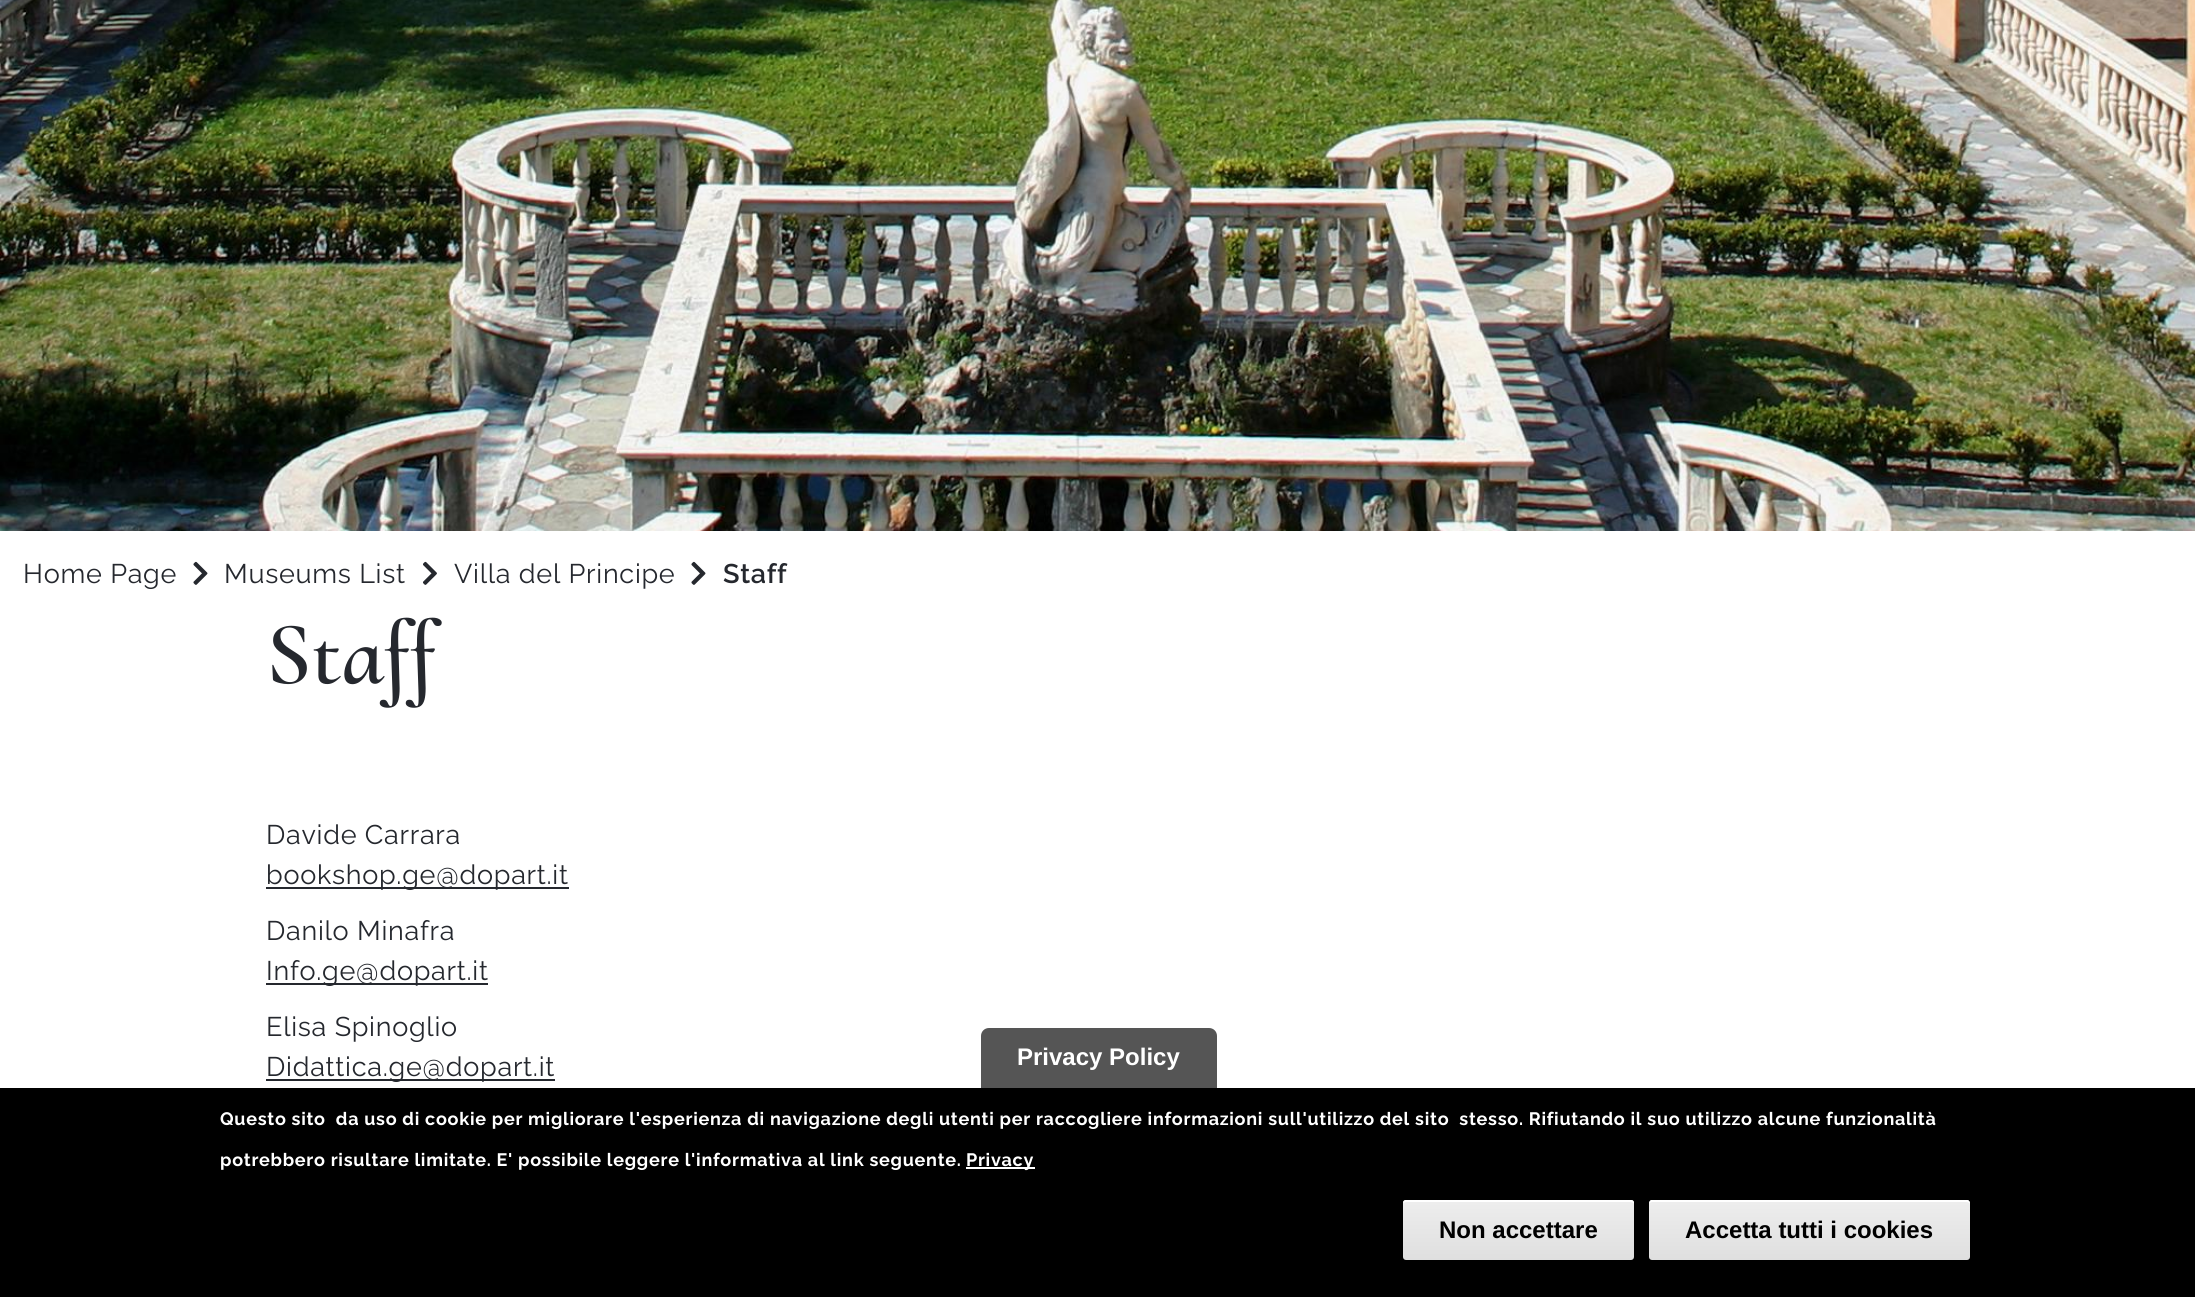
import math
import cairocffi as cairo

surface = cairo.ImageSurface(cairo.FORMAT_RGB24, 2195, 1297)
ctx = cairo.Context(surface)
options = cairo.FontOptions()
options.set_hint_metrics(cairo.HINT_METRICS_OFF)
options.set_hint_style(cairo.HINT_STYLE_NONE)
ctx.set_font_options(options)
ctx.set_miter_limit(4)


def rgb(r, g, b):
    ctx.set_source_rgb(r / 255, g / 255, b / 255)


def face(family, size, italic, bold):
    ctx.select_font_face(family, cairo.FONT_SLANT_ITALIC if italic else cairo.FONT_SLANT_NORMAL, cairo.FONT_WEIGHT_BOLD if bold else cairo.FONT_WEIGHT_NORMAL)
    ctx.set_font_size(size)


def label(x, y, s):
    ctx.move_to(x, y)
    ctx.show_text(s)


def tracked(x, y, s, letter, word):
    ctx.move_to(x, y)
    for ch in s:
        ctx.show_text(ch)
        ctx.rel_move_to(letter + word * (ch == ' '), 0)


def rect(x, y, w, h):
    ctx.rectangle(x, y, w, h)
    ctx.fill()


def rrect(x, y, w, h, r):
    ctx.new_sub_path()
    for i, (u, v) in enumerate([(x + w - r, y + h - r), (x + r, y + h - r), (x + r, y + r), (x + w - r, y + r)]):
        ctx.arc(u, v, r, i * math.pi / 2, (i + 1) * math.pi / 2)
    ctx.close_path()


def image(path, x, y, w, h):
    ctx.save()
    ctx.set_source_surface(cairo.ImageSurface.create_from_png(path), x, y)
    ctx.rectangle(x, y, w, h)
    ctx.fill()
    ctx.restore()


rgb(255, 255, 255)
ctx.paint()
image('image0.png', 0, 0, 2195, 531)
face('Raleway', 27, 0, 0)
rgb(37, 40, 46)
tracked(23, 583, 'Home Page', 0.72, 0)
image('image1.png', 193, 561, 15, 24)
tracked(224, 583, 'Museums List', 0.72, 0)
image('image2.png', 423, 561, 14, 24)
tracked(454, 583, 'Villa del Principe', 0.72, 0)
image('image1.png', 691, 561, 15, 24)
face('Raleway SemiBold', 27, 0, 0)
tracked(723, 583, 'Staff', 0.72, 0)
face('Cormorant Upright SemiBold', 90, 0, 0)
tracked(266, 683, 'Staff', 0.72, 0)
face('Raleway', 27, 0, 0)
tracked(266, 844, 'Davide Carrara', 0.72, 0)
rect(266, 887, 303, 2)
tracked(266, 884, 'bookshop.ge@dopart.it', 0.72, 0)
tracked(266, 940, 'Danilo Minafra', 0.72, 0)
rect(266, 983, 222, 2)
tracked(266, 980, 'Info.ge@dopart.it', 0.72, 0)
tracked(266, 1036, 'Elisa Spinoglio', 0.72, 0)
rect(266, 1079, 289, 2)
tracked(266, 1076, 'Didattica.ge@dopart.it', 0.72, 0)
rgb(0, 0, 0)
rect(0, 1088, 2195, 209)
rgb(85, 85, 85)
ctx.new_path()
ctx.move_to(989, 1028)
ctx.line_to(1209, 1028)
ctx.curve_to(1213.5, 1028, 1217, 1031.5, 1217, 1036)
ctx.line_to(1217, 1088)
ctx.line_to(981, 1088)
ctx.line_to(981, 1036)
ctx.curve_to(981, 1031.5, 984.5, 1028, 989, 1028)
ctx.close_path()
ctx.fill()
face('Liberation Sans', 24, 0, 1)
rgb(255, 255, 255)
label(1017, 1065, 'Privacy Policy')
face('Raleway', 18, 0, 1)
tracked(220, 1125, 'Questo sito  da uso di cookie per migliorare l\'esperienza di navigazione degli utenti per raccogliere informazioni sull\'utilizzo del sito  stesso. Rifiutando il suo utilizzo alcune funzionalità', 0.72, 0)
tracked(220, 1166, 'potrebbero risultare limitate. E\' possibile leggere l\'informativa al link seguente.', 0.72, 0)
rect(966, 1167, 69, 2)
tracked(966, 1166, 'Privacy', 0.72, 0)
gradient = cairo.LinearGradient(1518, 1200, 1518, 1260)
gradient.add_color_stop_rgba(0.05, 0.929, 0.929, 0.929, 1)
gradient.add_color_stop_rgba(1, 0.875, 0.875, 0.875, 1)
ctx.set_source(gradient)
rrect(1403, 1200, 231, 60, 3)
ctx.fill()
rgb(255, 255, 255)
ctx.new_path()
ctx.move_to(1406, 1202)
ctx.line_to(1630, 1202)
ctx.curve_to(1632, 1202, 1634, 1203, 1634, 1204)
ctx.line_to(1634, 1203)
ctx.curve_to(1634, 1201, 1633, 1200, 1631, 1200)
ctx.line_to(1406, 1200)
ctx.curve_to(1404, 1200, 1403, 1201, 1403, 1203)
ctx.close_path()
ctx.fill()
face('Liberation Sans', 24, 0, 1)
rgb(0, 0, 0)
label(1439, 1238, 'Non accettare')
gradient = cairo.LinearGradient(1809, 1200, 1809, 1260)
gradient.add_color_stop_rgba(0.05, 0.929, 0.929, 0.929, 1)
gradient.add_color_stop_rgba(1, 0.875, 0.875, 0.875, 1)
ctx.set_source(gradient)
rrect(1649, 1200, 321, 60, 3)
ctx.fill()
rgb(255, 255, 255)
ctx.new_path()
ctx.move_to(1652, 1202)
ctx.line_to(1966, 1202)
ctx.curve_to(1968, 1202, 1970, 1203, 1970, 1204)
ctx.curve_to(1970, 1202, 1969, 1200, 1967, 1200)
ctx.line_to(1651, 1200)
ctx.line_to(1650, 1201)
ctx.line_to(1649, 1203)
ctx.close_path()
ctx.fill()
rgb(0, 0, 0)
label(1685, 1238, 'Accetta tutti i cookies')
surface.write_to_png('render.png')
